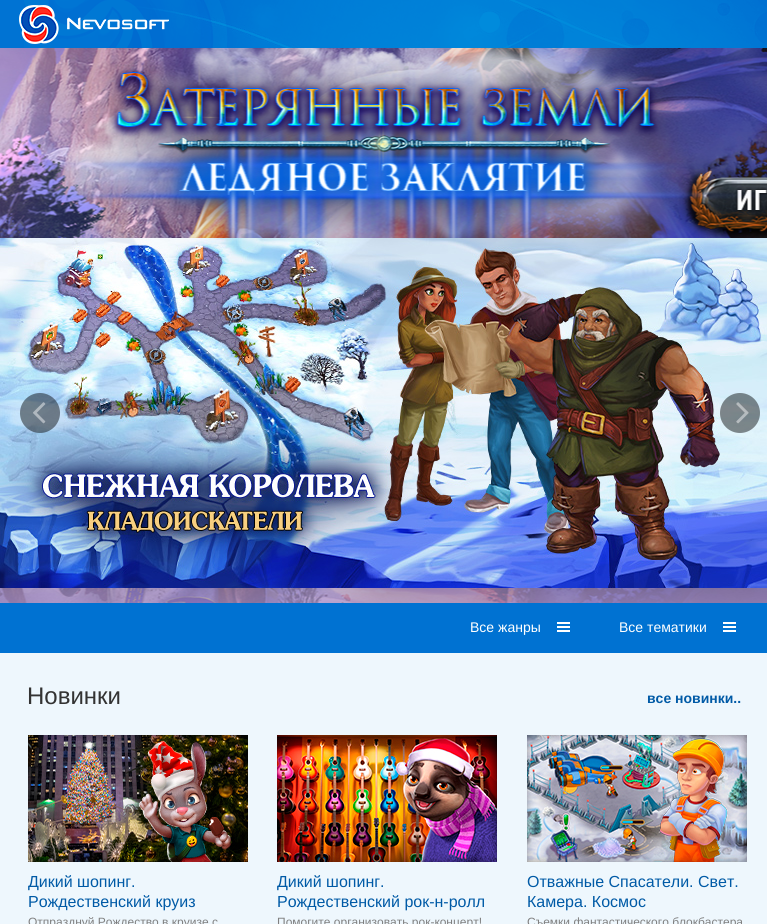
import math
import cairocffi as cairo

surface = cairo.ImageSurface(cairo.FORMAT_RGB24, 767, 924)
ctx = cairo.Context(surface)
options = cairo.FontOptions()
options.set_hint_metrics(cairo.HINT_METRICS_OFF)
options.set_hint_style(cairo.HINT_STYLE_NONE)
ctx.set_font_options(options)
ctx.set_miter_limit(4)


def rgb(r, g, b):
    ctx.set_source_rgb(r / 255, g / 255, b / 255)


def face(family, size, italic, bold):
    ctx.select_font_face(family, cairo.FONT_SLANT_ITALIC if italic else cairo.FONT_SLANT_NORMAL, cairo.FONT_WEIGHT_BOLD if bold else cairo.FONT_WEIGHT_NORMAL)
    ctx.set_font_size(size)


def label(x, y, s):
    ctx.move_to(x, y)
    ctx.show_text(s)


def rect(x, y, w, h):
    ctx.rectangle(x, y, w, h)
    ctx.fill()


def image(path, x, y, w, h):
    ctx.save()
    ctx.set_source_surface(cairo.ImageSurface.create_from_png(path), x, y)
    ctx.rectangle(x, y, w, h)
    ctx.fill()
    ctx.restore()


rgb(255, 255, 255)
ctx.paint()
rgb(0, 115, 211)
rect(0, 0, 24, 48)
image('image0.png', 24, 0, 743, 48)
image('image1.png', 19, 5, 150, 39)
image('image2.png', 0, 48, 767, 555)
image('image3.png', 0, 238, 767, 350)
ctx.set_source_rgba(0, 0, 0, 0.45)
ctx.arc(40, 413, 20, 0, 2 * math.pi)
ctx.fill()
image('image4.png', 33, 402, 13, 22)
ctx.arc(740, 413, 20, 0, 2 * math.pi)
ctx.fill()
image('image5.png', 736, 402, 13, 22)
rgb(0, 114, 210)
rect(0, 603, 767, 50)
face('Liberation Sans', 14, 0, 0)
rgb(255, 255, 255)
label(470, 632, 'Все жанры')
image('image6.png', 557, 622, 13, 10)
label(619, 632, 'Все тематики')
image('image6.png', 723, 622, 13, 10)
rgb(238, 247, 253)
rect(0, 653, 767, 271)
face('Liberation Sans', 24, 0, 0)
rgb(51, 51, 51)
label(27, 704, 'Новинки')
face('Liberation Sans', 14, 0, 1)
rgb(0, 90, 166)
label(647, 703, 'все новинки..')
image('image7.png', 28, 735, 220, 127)
face('Liberation Sans', 16, 0, 0)
label(28, 887, 'Дикий шопинг.')
label(28, 907, 'Рождественский круиз')
face('Liberation Sans', 12, 0, 0)
rgb(128, 128, 128)
label(28, 926, 'Отпразднуй Рождество в круизе с')
image('image8.png', 277, 735, 220, 127)
face('Liberation Sans', 16, 0, 0)
rgb(0, 90, 166)
label(277, 887, 'Дикий шопинг.')
label(277, 907, 'Рождественский рок-н-ролл')
face('Liberation Sans', 12, 0, 0)
rgb(128, 128, 128)
label(277, 926, 'Помогите организовать рок-концерт!')
image('image9.png', 527, 735, 220, 127)
face('Liberation Sans', 16, 0, 0)
rgb(0, 90, 166)
label(527, 887, 'Отважные Спасатели. Свет.')
label(527, 907, 'Камера. Космос')
face('Liberation Sans', 12, 0, 0)
rgb(128, 128, 128)
label(527, 926, 'Съемки фантастического блокбастера')
surface.write_to_png('render.png')
